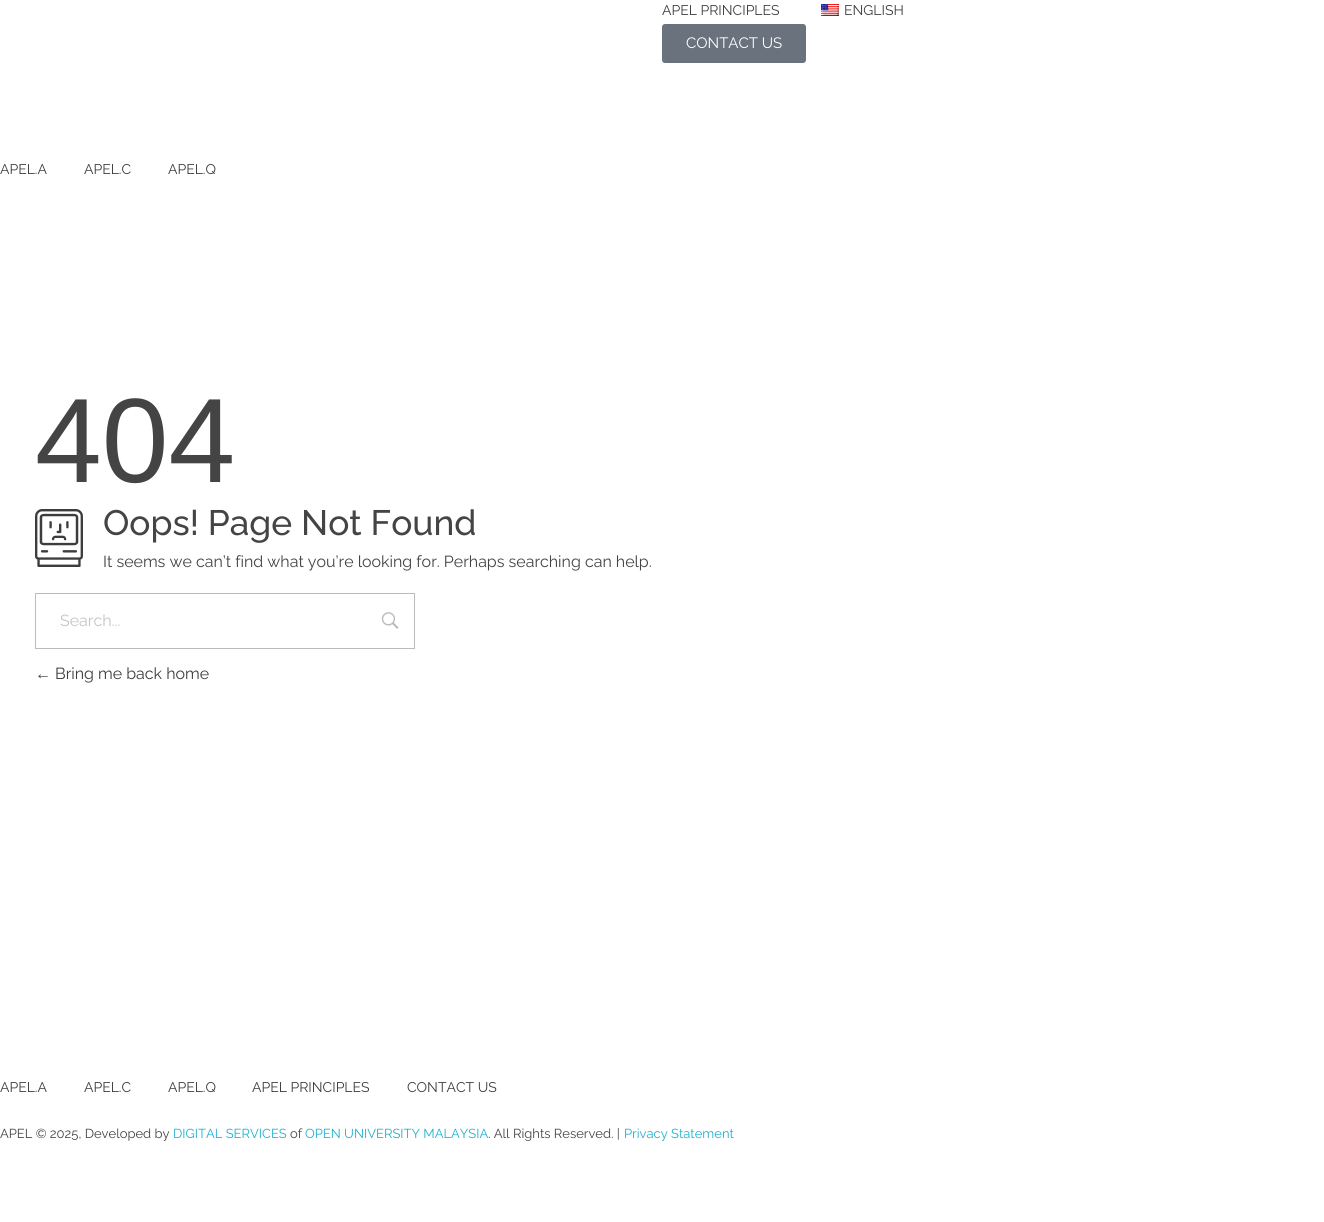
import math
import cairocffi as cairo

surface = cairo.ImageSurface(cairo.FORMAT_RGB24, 1324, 1222)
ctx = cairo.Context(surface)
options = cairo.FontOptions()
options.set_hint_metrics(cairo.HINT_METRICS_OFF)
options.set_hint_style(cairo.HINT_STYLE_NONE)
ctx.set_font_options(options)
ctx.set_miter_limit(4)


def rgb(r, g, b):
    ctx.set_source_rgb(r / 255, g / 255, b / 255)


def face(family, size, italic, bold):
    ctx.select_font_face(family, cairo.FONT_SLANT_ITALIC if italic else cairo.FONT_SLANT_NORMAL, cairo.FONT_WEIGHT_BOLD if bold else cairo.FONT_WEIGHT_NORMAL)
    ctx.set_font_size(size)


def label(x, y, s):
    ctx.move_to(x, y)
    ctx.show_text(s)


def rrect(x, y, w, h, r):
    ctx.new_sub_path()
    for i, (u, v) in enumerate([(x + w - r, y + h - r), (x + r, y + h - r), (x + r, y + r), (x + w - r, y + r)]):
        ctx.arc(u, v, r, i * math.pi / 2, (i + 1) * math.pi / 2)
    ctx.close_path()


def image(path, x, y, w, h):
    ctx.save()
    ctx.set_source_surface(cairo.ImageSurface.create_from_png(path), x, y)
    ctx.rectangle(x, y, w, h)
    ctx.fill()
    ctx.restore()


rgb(255, 255, 255)
ctx.paint()
face('Raleway', 14, 0, 0)
rgb(61, 61, 61)
label(662, 15, 'APEL PRINCIPLES')
image('image0.png', 821, 4, 18, 12)
label(844, 15, 'ENGLISH')
rgb(105, 114, 125)
rrect(662, 24, 144, 39, 3)
ctx.fill()
face('Raleway', 15, 0, 0)
rgb(255, 255, 255)
label(686, 48, 'CONTACT US')
face('Raleway', 14, 0, 0)
rgb(61, 61, 61)
label(0, 174, 'APEL.A')
label(84, 174, 'APEL.C')
label(168, 174, 'APEL.Q')
face('Liberation Sans', 120, 0, 0)
rgb(68, 68, 68)
label(35, 482, '404')
image('image1.png', 35, 509, 48, 58)
face('Raleway Medium', 35.25, 0, 0)
label(103, 535, 'Oops! Page Not Found')
face('Raleway', 16, 0, 0)
label(103, 567, 'It seems we can’t find what you’re looking for. Perhaps searching can help.')
ctx.rectangle(35.5, 593.5, 379, 55)
rgb(187, 187, 187)
ctx.set_line_width(1)
ctx.stroke()
rgb(197, 197, 197)
label(60, 626, 'Search...')
image('image2.png', 381, 612, 18, 17)
face('Liberation Sans', 16, 0, 0)
rgb(61, 61, 61)
label(35, 679, '←')
face('Raleway', 16, 0, 0)
label(55, 679, 'Bring me back home')
face('Raleway', 14, 0, 0)
label(0, 1092, 'APEL.A')
label(84, 1092, 'APEL.C')
label(168, 1092, 'APEL.Q')
label(252, 1092, 'APEL PRINCIPLES')
label(407, 1092, 'CONTACT US')
face('Raleway', 13, 0, 0)
rgb(68, 68, 68)
label(0, 1138, 'APEL © 2025, Developed by')
rgb(27, 176, 206)
label(173, 1138, 'DIGITAL SERVICES')
rgb(68, 68, 68)
label(290, 1138, 'of')
rgb(27, 176, 206)
label(305, 1138, 'OPEN UNIVERSITY MALAYSIA')
rgb(68, 68, 68)
label(488, 1138, '. All Rights Reserved. |')
rgb(27, 176, 206)
label(624, 1138, 'Privacy Statement')
surface.write_to_png('render.png')
